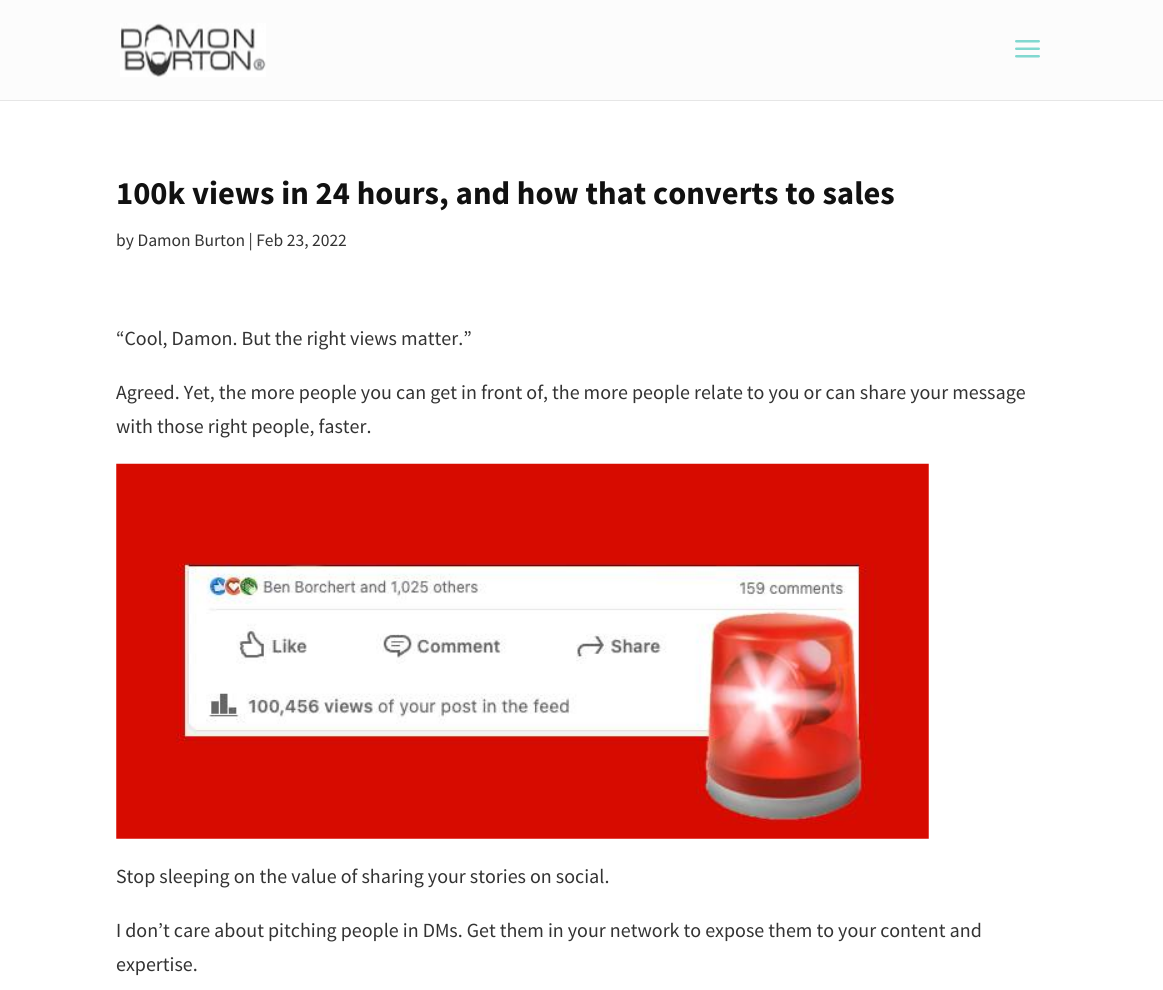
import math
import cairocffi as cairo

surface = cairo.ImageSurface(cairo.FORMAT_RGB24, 1163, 990)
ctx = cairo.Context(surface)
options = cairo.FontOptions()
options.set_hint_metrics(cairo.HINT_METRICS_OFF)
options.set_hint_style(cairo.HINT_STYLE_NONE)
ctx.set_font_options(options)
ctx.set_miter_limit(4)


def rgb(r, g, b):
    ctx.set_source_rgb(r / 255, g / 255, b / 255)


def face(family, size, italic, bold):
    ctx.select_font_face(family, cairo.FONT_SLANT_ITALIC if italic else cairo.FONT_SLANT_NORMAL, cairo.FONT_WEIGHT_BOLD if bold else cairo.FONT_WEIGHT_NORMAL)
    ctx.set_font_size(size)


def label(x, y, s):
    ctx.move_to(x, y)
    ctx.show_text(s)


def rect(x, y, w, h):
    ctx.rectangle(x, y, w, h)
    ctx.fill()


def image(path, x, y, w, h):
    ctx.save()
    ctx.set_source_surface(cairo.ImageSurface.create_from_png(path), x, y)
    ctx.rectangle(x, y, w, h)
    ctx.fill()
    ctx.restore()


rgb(252, 252, 252)
ctx.paint()
rgb(230, 230, 230)
ctx.new_path()
ctx.move_to(0, 100)
ctx.line_to(0, 101)
ctx.line_to(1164, 101)
ctx.line_to(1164, 1)
ctx.line_to(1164, 100)
ctx.close_path()
ctx.fill()
image('image0.png', 120, 23, 146, 54)
image('image1.png', 1015, 40, 25, 18)
rgb(255, 255, 255)
rect(0, 101, 1163, 889)
face('Source Sans Pro', 32.5, 0, 1)
rgb(17, 17, 17)
label(116, 204, '100k views in 24 hours, and how that converts to sales')
face('Source Sans Pro', 17.5, 0, 0)
rgb(51, 51, 51)
label(116, 246, 'by Damon Burton | Feb 23, 2022')
face('Source Sans Pro', 20, 0, 0)
label(116, 345, '“Cool, Damon. But the right views matter.”')
label(116, 399, 'Agreed. Yet, the more people you can get in front of, the more people relate to you or can share your message')
label(116, 433, 'with those right people, faster.')
image('image2.png', 116, 463, 813, 376)
label(116, 883, 'Stop sleeping on the value of sharing your stories on social.')
label(116, 937, 'I don’t care about pitching people in DMs. Get them in your network to expose them to your content and')
label(116, 971, 'expertise.')
surface.write_to_png('render.png')
